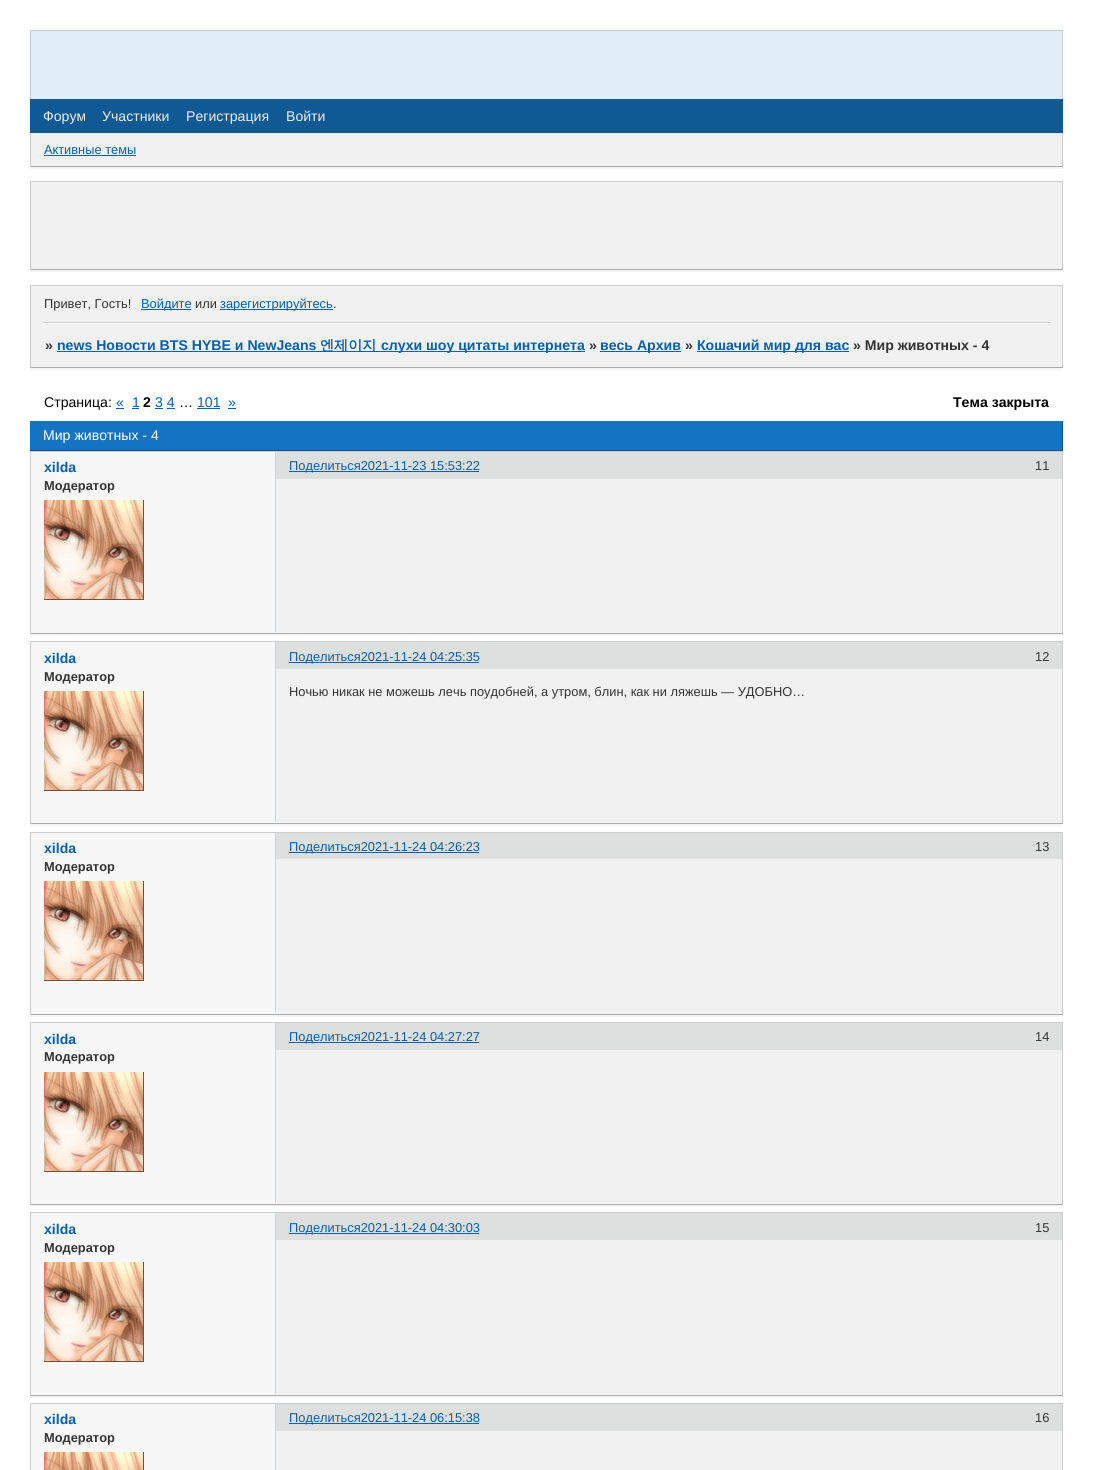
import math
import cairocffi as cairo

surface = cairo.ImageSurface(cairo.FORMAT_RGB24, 1093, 1470)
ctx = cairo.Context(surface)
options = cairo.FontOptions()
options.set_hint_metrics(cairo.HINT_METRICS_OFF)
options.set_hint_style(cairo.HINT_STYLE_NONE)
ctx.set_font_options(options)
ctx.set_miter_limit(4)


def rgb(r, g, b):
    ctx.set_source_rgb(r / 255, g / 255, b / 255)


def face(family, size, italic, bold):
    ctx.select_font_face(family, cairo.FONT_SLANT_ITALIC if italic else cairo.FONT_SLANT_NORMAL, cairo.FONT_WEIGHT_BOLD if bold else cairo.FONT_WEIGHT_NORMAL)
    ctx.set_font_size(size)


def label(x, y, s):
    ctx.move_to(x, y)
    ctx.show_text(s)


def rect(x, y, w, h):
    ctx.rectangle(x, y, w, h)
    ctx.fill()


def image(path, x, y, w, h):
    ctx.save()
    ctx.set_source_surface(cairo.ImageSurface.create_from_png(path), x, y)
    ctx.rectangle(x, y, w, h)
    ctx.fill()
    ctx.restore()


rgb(255, 255, 255)
ctx.paint()
rgb(225, 237, 247)
rect(31, 31, 1031, 68)
rgb(204, 204, 204)
rect(30, 30, 1033, 1)
rect(1062, 30, 1, 69)
rect(30, 30, 1, 69)
rgb(15, 89, 149)
rect(30, 99, 1033, 34)
face('Liberation Sans', 14.1, 0, 0)
rgb(238, 238, 238)
label(43, 121, 'Форум')
label(102, 121, 'Участники')
label(186, 121, 'Регистрация')
label(286, 121, 'Войти')
rgb(245, 245, 245)
rect(30, 167, 1033, 2)
rgb(241, 241, 241)
rect(31, 133, 1031, 33)
rgb(204, 204, 204)
rect(1062, 133, 1, 34)
rgb(170, 170, 170)
rect(30, 166, 1033, 1)
rgb(204, 204, 204)
rect(30, 133, 1, 34)
face('Liberation Sans', 12.85, 0, 0)
rgb(0, 94, 171)
label(44, 154, 'Активные темы')
rect(44, 155, 92, 1)
rgb(245, 245, 245)
rect(30, 270, 1033, 2)
rgb(241, 241, 241)
rect(31, 182, 1031, 87)
rgb(204, 204, 204)
rect(30, 181, 1033, 1)
rect(1062, 181, 1, 89)
rgb(170, 170, 170)
rect(30, 269, 1033, 1)
rgb(204, 204, 204)
rect(30, 181, 1, 89)
rgb(241, 241, 241)
rect(31, 286, 1031, 81)
rgb(204, 204, 204)
rect(30, 285, 1033, 1)
rect(1062, 285, 1, 83)
rect(30, 285, 1, 39)
rgb(51, 51, 51)
label(44, 308, 'Привет, Гость!')
rgb(0, 94, 171)
rect(141, 309, 50, 1)
label(141, 308, 'Войдите')
rgb(51, 51, 51)
label(195, 308, 'или')
rgb(0, 94, 171)
rect(220, 309, 113, 1)
label(220, 308, 'зарегистрируйтесь')
rgb(51, 51, 51)
label(333, 308, '.')
rgb(204, 204, 204)
rect(43, 322, 1007, 1)
rgb(255, 255, 255)
rect(43, 323, 1007, 1)
rgb(245, 245, 245)
rect(30, 368, 1033, 2)
rgb(170, 170, 170)
rect(30, 367, 1033, 1)
rgb(204, 204, 204)
rect(30, 322, 1, 46)
face('Liberation Sans', 14.1, 0, 1)
rgb(51, 51, 51)
label(45, 350, '»')
rgb(0, 94, 171)
label(57, 350, 'news Новости BTS HYBE и NewJeans')
rect(57, 351, 528, 1)
face('WenQuanYi Zen Hei', 14.1, 0, 1)
label(320, 350, '엔제이지')
face('Liberation Sans', 14.1, 0, 1)
label(381, 350, 'слухи шоу цитаты интернета')
rgb(51, 51, 51)
label(589, 350, '»')
rgb(0, 94, 171)
rect(600, 351, 81, 1)
label(600, 350, 'весь Архив')
rgb(51, 51, 51)
label(685, 350, '»')
rgb(0, 94, 171)
rect(697, 351, 152, 1)
label(697, 350, 'Кошачий мир для вас')
rgb(51, 51, 51)
label(853, 350, '» Мир животных - 4')
face('Liberation Sans', 14.1, 0, 0)
rgb(0, 0, 0)
label(44, 407, 'Страница:')
rgb(0, 94, 171)
label(116, 407, '«')
rect(116, 408, 8, 1)
label(132, 407, '1')
rect(132, 408, 7, 1)
face('Liberation Sans', 14.1, 0, 1)
rgb(0, 0, 0)
label(143, 407, '2')
face('Liberation Sans', 14.1, 0, 0)
rgb(0, 94, 171)
label(155, 407, '3 4')
rect(155, 408, 8, 1)
rgb(0, 0, 0)
label(179, 407, '…')
rgb(0, 94, 171)
label(197, 407, '101')
rect(197, 408, 23, 1)
label(228, 407, '»')
rect(228, 408, 8, 1)
rect(167, 408, 8, 1)
face('Liberation Sans', 14.1, 0, 1)
rgb(0, 0, 0)
label(953, 407, 'Тема закрыта')
rgb(20, 116, 195)
rect(30, 421, 1032, 29)
rgb(0, 79, 144)
rect(1062, 421, 1, 30)
rect(30, 450, 1033, 1)
face('Liberation Sans', 14.1, 0, 0)
rgb(255, 255, 255)
label(43, 440, 'Мир животных - 4')
rgb(245, 245, 245)
rect(30, 634, 1033, 2)
rgb(201, 214, 224)
rect(275, 452, 1, 28)
rgb(247, 247, 247)
rect(31, 479, 1031, 154)
rgb(204, 204, 204)
rect(30, 451, 1033, 1)
rect(1062, 451, 1, 183)
rgb(170, 170, 170)
rect(30, 633, 1033, 1)
rgb(204, 204, 204)
rect(30, 451, 1, 29)
rect(30, 479, 1, 155)
rgb(247, 247, 247)
rect(31, 452, 244, 27)
face('Liberation Sans', 14.1, 0, 1)
rgb(0, 94, 171)
label(44, 472, 'xilda')
face('Liberation Sans', 12.85, 0, 1)
rgb(51, 51, 51)
label(44, 490, 'Модератор')
image('image0.png', 44, 500, 100, 100)
rgb(241, 241, 241)
rect(276, 479, 786, 153)
rgb(201, 214, 224)
rect(275, 479, 1, 153)
rgb(222, 223, 223)
rect(276, 452, 786, 27)
rgb(0, 94, 171)
rect(289, 471, 190, 1)
face('Liberation Sans', 12.85, 0, 0)
label(289, 470, 'Поделиться2021-11-23 15:53:22')
rgb(51, 51, 51)
label(1035, 470, '11')
rgb(245, 245, 245)
rect(30, 824, 1033, 2)
rgb(201, 214, 224)
rect(275, 642, 1, 28)
rgb(247, 247, 247)
rect(31, 669, 1031, 154)
rgb(204, 204, 204)
rect(30, 641, 1033, 1)
rect(1062, 641, 1, 183)
rgb(170, 170, 170)
rect(30, 823, 1033, 1)
rgb(204, 204, 204)
rect(30, 641, 1, 29)
rect(30, 669, 1, 155)
rgb(247, 247, 247)
rect(31, 642, 244, 27)
face('Liberation Sans', 14.1, 0, 1)
rgb(0, 94, 171)
label(44, 663, 'xilda')
face('Liberation Sans', 12.85, 0, 1)
rgb(51, 51, 51)
label(44, 681, 'Модератор')
image('image0.png', 44, 691, 100, 100)
rgb(241, 241, 241)
rect(276, 669, 786, 153)
rgb(201, 214, 224)
rect(275, 669, 1, 153)
face('Liberation Sans', 12.85, 0, 0)
rgb(51, 51, 51)
label(289, 696, 'Ночью никак не можешь лечь поудобней, а утром, блин, как ни ляжешь — УДОБНО…')
rgb(222, 223, 223)
rect(276, 642, 786, 27)
rgb(0, 94, 171)
rect(289, 662, 190, 1)
label(289, 661, 'Поделиться2021-11-24 04:25:35')
rgb(51, 51, 51)
label(1035, 661, '12')
rgb(245, 245, 245)
rect(30, 1015, 1033, 2)
rgb(201, 214, 224)
rect(275, 833, 1, 27)
rgb(247, 247, 247)
rect(31, 859, 1031, 155)
rgb(204, 204, 204)
rect(30, 832, 1033, 1)
rect(1062, 832, 1, 183)
rgb(170, 170, 170)
rect(30, 1014, 1033, 1)
rgb(204, 204, 204)
rect(30, 832, 1, 28)
rect(30, 859, 1, 156)
rgb(247, 247, 247)
rect(31, 833, 244, 26)
face('Liberation Sans', 14.1, 0, 1)
rgb(0, 94, 171)
label(44, 853, 'xilda')
face('Liberation Sans', 12.85, 0, 1)
rgb(51, 51, 51)
label(44, 871, 'Модератор')
image('image0.png', 44, 881, 100, 100)
rgb(241, 241, 241)
rect(276, 859, 786, 154)
rgb(201, 214, 224)
rect(275, 859, 1, 154)
rgb(222, 223, 223)
rect(276, 833, 786, 26)
rgb(0, 94, 171)
rect(289, 852, 190, 1)
face('Liberation Sans', 12.85, 0, 0)
label(289, 851, 'Поделиться2021-11-24 04:26:23')
rgb(51, 51, 51)
label(1035, 851, '13')
rgb(245, 245, 245)
rect(30, 1205, 1033, 2)
rgb(201, 214, 224)
rect(275, 1023, 1, 28)
rgb(247, 247, 247)
rect(31, 1050, 1031, 154)
rgb(204, 204, 204)
rect(30, 1022, 1033, 1)
rect(1062, 1022, 1, 183)
rgb(170, 170, 170)
rect(30, 1204, 1033, 1)
rgb(204, 204, 204)
rect(30, 1022, 1, 29)
rect(30, 1050, 1, 155)
rgb(247, 247, 247)
rect(31, 1023, 244, 27)
face('Liberation Sans', 14.1, 0, 1)
rgb(0, 94, 171)
label(44, 1044, 'xilda')
face('Liberation Sans', 12.85, 0, 1)
rgb(51, 51, 51)
label(44, 1061, 'Модератор')
image('image0.png', 44, 1072, 100, 100)
rgb(241, 241, 241)
rect(276, 1050, 786, 153)
rgb(201, 214, 224)
rect(275, 1050, 1, 153)
rgb(222, 223, 223)
rect(276, 1023, 786, 27)
rgb(0, 94, 171)
rect(289, 1042, 190, 1)
face('Liberation Sans', 12.85, 0, 0)
label(289, 1041, 'Поделиться2021-11-24 04:27:27')
rgb(51, 51, 51)
label(1035, 1041, '14')
rgb(245, 245, 245)
rect(30, 1396, 1033, 2)
rgb(201, 214, 224)
rect(275, 1213, 1, 28)
rgb(247, 247, 247)
rect(31, 1240, 1031, 155)
rgb(204, 204, 204)
rect(30, 1212, 1033, 1)
rect(1062, 1212, 1, 184)
rgb(170, 170, 170)
rect(30, 1395, 1033, 1)
rgb(204, 204, 204)
rect(30, 1212, 1, 29)
rect(30, 1240, 1, 156)
rgb(247, 247, 247)
rect(31, 1213, 244, 27)
face('Liberation Sans', 14.1, 0, 1)
rgb(0, 94, 171)
label(44, 1234, 'xilda')
face('Liberation Sans', 12.85, 0, 1)
rgb(51, 51, 51)
label(44, 1252, 'Модератор')
image('image0.png', 44, 1262, 100, 100)
rgb(241, 241, 241)
rect(276, 1240, 786, 154)
rgb(201, 214, 224)
rect(275, 1240, 1, 154)
rgb(222, 223, 223)
rect(276, 1213, 786, 27)
rgb(0, 94, 171)
rect(289, 1233, 190, 1)
face('Liberation Sans', 12.85, 0, 0)
label(289, 1232, 'Поделиться2021-11-24 04:30:03')
rgb(51, 51, 51)
label(1035, 1232, '15')
rgb(247, 247, 247)
rect(31, 1404, 244, 66)
face('Liberation Sans', 14.1, 0, 1)
rgb(0, 94, 171)
label(44, 1424, 'xilda')
face('Liberation Sans', 12.85, 0, 1)
rgb(51, 51, 51)
label(44, 1442, 'Модератор')
image('image1.png', 44, 1452, 100, 18)
rgb(241, 241, 241)
rect(276, 1431, 786, 39)
rgb(204, 204, 204)
rect(30, 1403, 1033, 1)
rect(1062, 1403, 1, 67)
rect(30, 1403, 1, 67)
rgb(222, 223, 223)
rect(276, 1404, 786, 27)
rgb(201, 214, 224)
rect(275, 1404, 1, 66)
rgb(0, 94, 171)
rect(289, 1423, 190, 1)
face('Liberation Sans', 12.85, 0, 0)
label(289, 1422, 'Поделиться2021-11-24 06:15:38')
rgb(51, 51, 51)
label(1035, 1422, '16')
surface.write_to_png('render.png')
